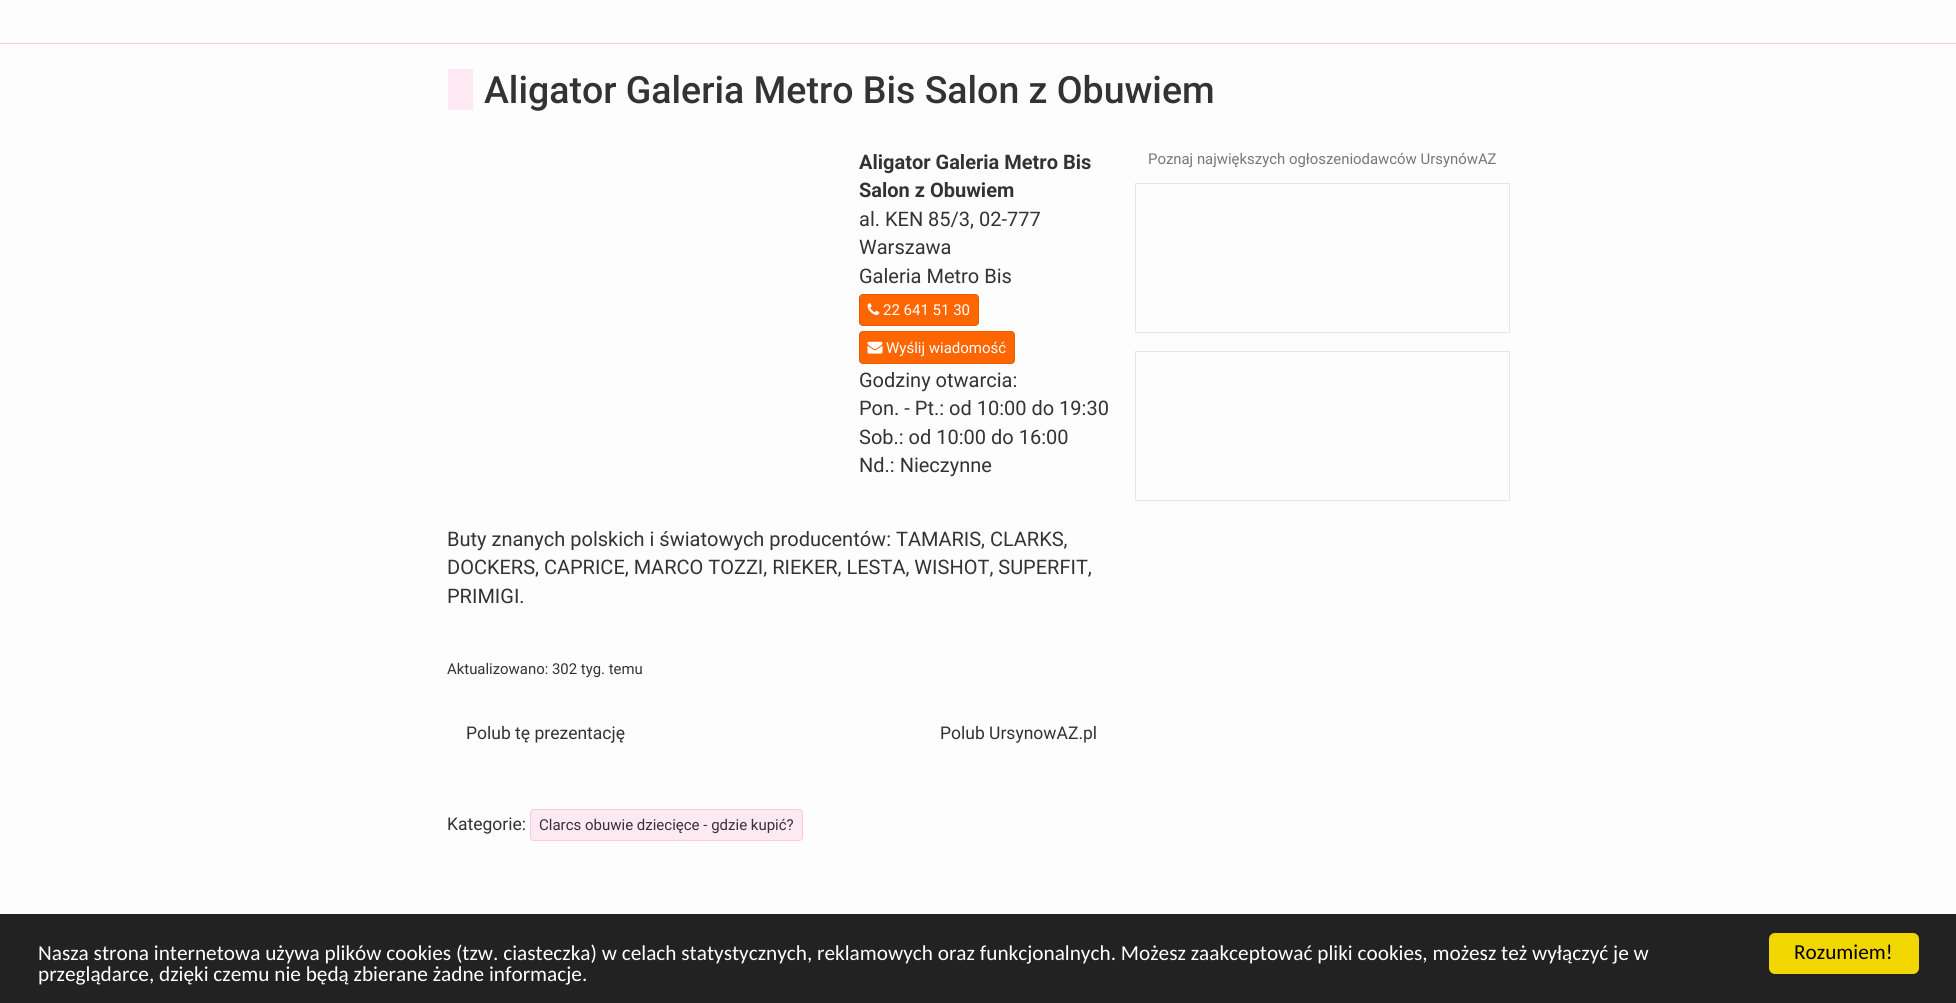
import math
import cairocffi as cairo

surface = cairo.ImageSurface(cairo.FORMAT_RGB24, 1956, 1003)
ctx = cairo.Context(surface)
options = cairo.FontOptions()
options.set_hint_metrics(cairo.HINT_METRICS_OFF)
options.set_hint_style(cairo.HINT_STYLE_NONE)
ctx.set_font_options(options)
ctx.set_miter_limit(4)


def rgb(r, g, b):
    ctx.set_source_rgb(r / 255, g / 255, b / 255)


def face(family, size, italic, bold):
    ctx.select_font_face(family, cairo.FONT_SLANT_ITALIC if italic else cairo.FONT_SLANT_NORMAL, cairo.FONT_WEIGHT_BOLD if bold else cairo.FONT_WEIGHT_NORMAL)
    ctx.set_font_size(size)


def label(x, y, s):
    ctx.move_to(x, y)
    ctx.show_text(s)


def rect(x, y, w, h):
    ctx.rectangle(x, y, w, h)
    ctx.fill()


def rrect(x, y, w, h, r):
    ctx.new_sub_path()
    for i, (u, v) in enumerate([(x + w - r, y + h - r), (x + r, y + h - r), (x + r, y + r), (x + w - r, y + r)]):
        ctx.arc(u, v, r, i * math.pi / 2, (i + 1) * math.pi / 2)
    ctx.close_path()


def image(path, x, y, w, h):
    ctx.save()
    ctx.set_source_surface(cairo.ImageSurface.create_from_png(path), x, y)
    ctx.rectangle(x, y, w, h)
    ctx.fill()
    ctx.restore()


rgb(253, 253, 253)
ctx.paint()
rgb(250, 202, 222)
rect(0, 43, 1956, 1)
rgb(253, 233, 241)
rect(448, 69, 25, 41)
face('Roboto Medium', 37.5, 0, 0)
rgb(51, 51, 51)
label(484, 103, 'Aligator Galeria Metro Bis Salon z Obuwiem')
face('Roboto', 20, 0, 1)
label(859, 169, 'Aligator Galeria Metro Bis')
label(859, 197, 'Salon z Obuwiem')
face('Roboto', 20, 0, 0)
label(859, 226, 'al. KEN 85/3, 02-777')
label(859, 254, 'Warszawa')
label(859, 283, 'Galeria Metro Bis')
rgb(255, 102, 0)
rrect(859.5, 294.5, 119, 31, 3.5)
ctx.fill_preserve()
rgb(230, 92, 0)
ctx.set_line_width(1)
ctx.stroke()
image('image0.png', 867, 303, 13, 12)
face('Roboto', 15, 0, 0)
rgb(255, 255, 255)
label(883, 315, '22 641 51 30')
rgb(255, 102, 0)
rrect(859.5, 331.5, 155, 32, 3.5)
ctx.fill_preserve()
rgb(230, 92, 0)
ctx.stroke()
image('image1.png', 867, 341, 16, 13)
rgb(255, 255, 255)
label(886, 353, 'Wyślij wiadomość')
face('Roboto', 20, 0, 0)
rgb(51, 51, 51)
label(859, 387, 'Godziny otwarcia:')
label(859, 415, 'Pon. - Pt.: od 10:00 do 19:30')
label(859, 444, 'Sob.: od 10:00 do 16:00')
label(859, 472, 'Nd.: Nieczynne')
label(447, 546, 'Buty znanych polskich i światowych producentów: TAMARIS, CLARKS,')
label(447, 574, 'DOCKERS, CAPRICE, MARCO TOZZI, RIEKER, LESTA, WISHOT, SUPERFIT,')
label(447, 603, 'PRIMIGI.')
face('Roboto', 14.9, 0, 0)
label(447, 674, 'Aktualizowano: 302 tyg. temu')
face('Roboto', 17.5, 0, 0)
label(466, 739, 'Polub tę prezentację')
label(940, 739, 'Polub UrsynowAZ.pl')
label(447, 830, 'Kategorie:')
rgb(253, 233, 241)
rrect(530.5, 809.5, 272, 31, 3.5)
ctx.fill_preserve()
rgb(250, 202, 222)
ctx.stroke()
face('Roboto', 15, 0, 0)
rgb(51, 51, 51)
label(539, 830, 'Clarcs obuwie dziecięce - gdzie kupić?')
face('Roboto', 14.9, 0, 0)
rgb(119, 119, 119)
label(1148, 164, 'Poznaj największych ogłoszeniodawców UrsynówAZ')
ctx.rectangle(1135.5, 183.5, 374, 149)
rgb(230, 230, 230)
ctx.stroke()
ctx.rectangle(1135.5, 351.5, 374, 149)
ctx.stroke()
rgb(34, 34, 34)
rect(0, 914, 1956, 89)
face('Carlito', 21.25, 0, 0)
rgb(255, 255, 255)
label(38, 960, 'Nasza strona internetowa używa plików cookies (tzw. ciasteczka) w celach statystycznych, reklamowych oraz funkcjonalnych. Możesz zaakceptować pliki cookies, możesz też wyłączyć je w')
label(38, 981, 'przeglądarce, dzięki czemu nie będą zbierane żadne informacje.')
rgb(241, 214, 0)
rrect(1769, 933, 150, 41, 6)
ctx.fill()
rgb(0, 0, 0)
label(1794, 959, 'Rozumiem!')
surface.write_to_png('render.png')
